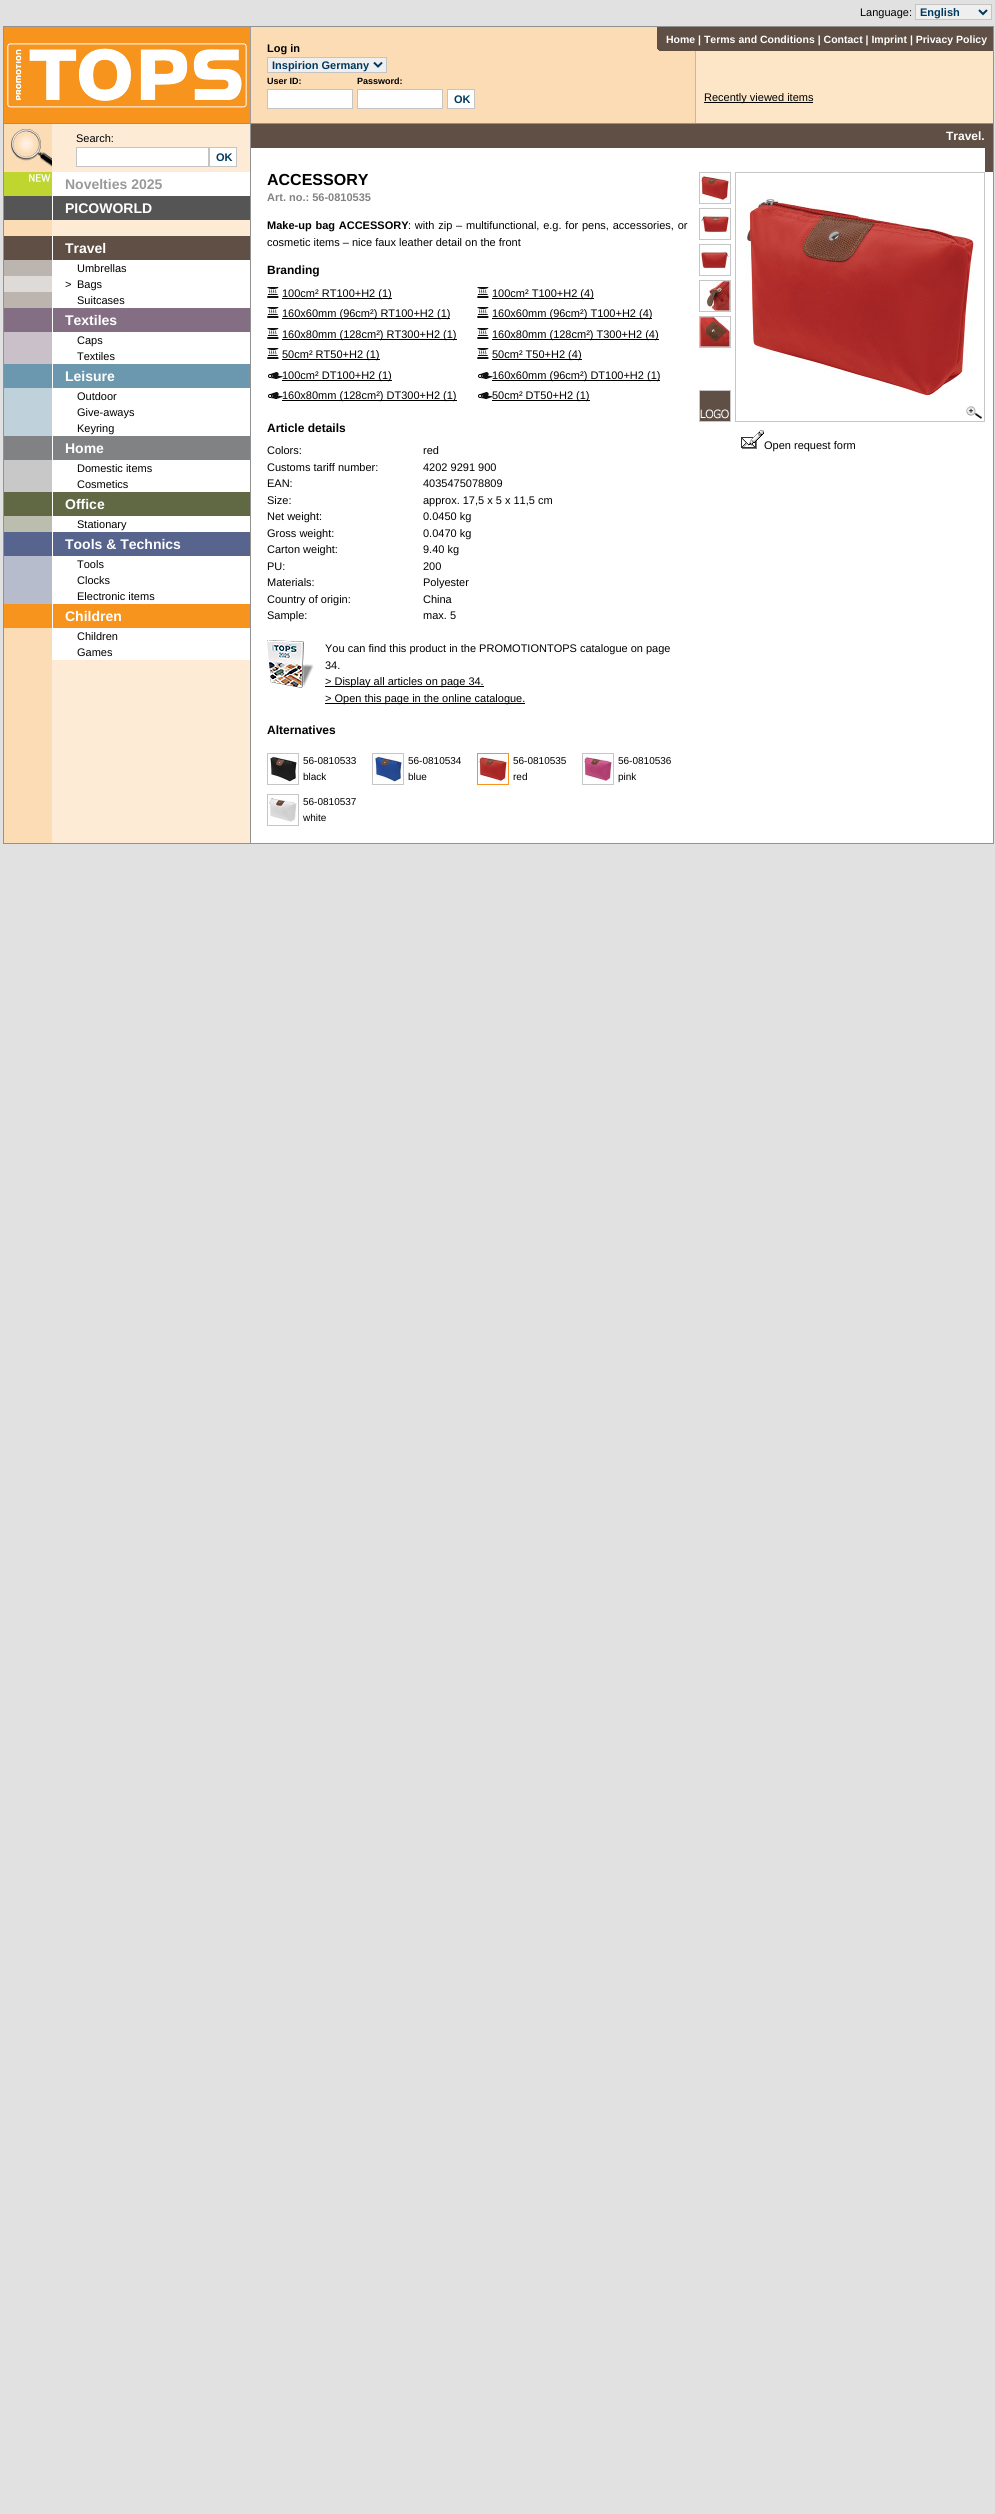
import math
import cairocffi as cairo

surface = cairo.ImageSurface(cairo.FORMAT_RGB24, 995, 2514)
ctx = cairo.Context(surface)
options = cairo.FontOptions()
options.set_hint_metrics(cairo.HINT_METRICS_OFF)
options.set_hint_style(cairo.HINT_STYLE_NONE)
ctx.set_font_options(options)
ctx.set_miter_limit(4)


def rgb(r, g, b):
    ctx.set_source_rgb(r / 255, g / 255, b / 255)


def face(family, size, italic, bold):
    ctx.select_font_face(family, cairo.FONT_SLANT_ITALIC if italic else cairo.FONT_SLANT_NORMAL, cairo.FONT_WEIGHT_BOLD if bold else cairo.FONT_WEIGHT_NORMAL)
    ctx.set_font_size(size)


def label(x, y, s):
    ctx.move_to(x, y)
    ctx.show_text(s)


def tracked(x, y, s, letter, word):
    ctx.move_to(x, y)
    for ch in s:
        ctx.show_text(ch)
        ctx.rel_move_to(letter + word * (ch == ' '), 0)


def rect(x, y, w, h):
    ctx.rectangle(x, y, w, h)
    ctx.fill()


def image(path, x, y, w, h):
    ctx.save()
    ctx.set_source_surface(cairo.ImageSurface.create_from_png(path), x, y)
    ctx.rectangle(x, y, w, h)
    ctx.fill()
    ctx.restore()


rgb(225, 225, 225)
ctx.paint()
face('Liberation Sans', 11, 0, 0)
rgb(0, 0, 0)
label(860, 16, 'Language:')
rgb(239, 239, 239)
ctx.rectangle(915.5, 4.5, 76, 15)
ctx.fill_preserve()
rgb(196, 196, 196)
ctx.set_line_width(1)
ctx.stroke()
ctx.new_path()
ctx.move_to(979, 10)
ctx.line_to(983, 14)
ctx.line_to(987, 10)
rgb(0, 57, 94)
ctx.set_line_width(2)
ctx.stroke()
face('Liberation Sans', 11, 0, 1)
label(920, 16, 'English')
ctx.rectangle(3.5, 26.5, 990, 817)
rgb(146, 146, 146)
ctx.set_line_width(1)
ctx.stroke()
rgb(247, 148, 29)
rect(4, 27, 3, 96)
image('image0.png', 7, 27, 244, 96)
rgb(252, 220, 181)
rect(251, 27, 444, 96)
rgb(96, 79, 68)
rect(657, 27, 336, 24)
face('Liberation Sans', 10.5, 0, 1)
rgb(255, 255, 255)
label(666, 43, 'Home | Terms and Conditions | Contact | Imprint | Privacy Policy')
image('image1.png', 657, 49, 2, 2)
face('Liberation Sans', 11, 0, 1)
rgb(0, 0, 0)
label(267, 52, 'Log in')
rgb(239, 239, 239)
ctx.rectangle(267.5, 57.5, 119, 15)
ctx.fill_preserve()
rgb(196, 196, 196)
ctx.stroke()
ctx.new_path()
ctx.move_to(374, 62.5)
ctx.line_to(378, 66.5)
ctx.line_to(382, 62.5)
rgb(0, 57, 94)
ctx.set_line_width(2)
ctx.stroke()
label(272, 69, 'Inspirion Germany')
face('Liberation Sans', 9, 0, 1)
rgb(0, 0, 0)
label(267, 84, 'User ID:')
label(357, 84, 'Password:')
rgb(255, 255, 255)
ctx.rectangle(267.5, 89.5, 85, 19)
ctx.fill_preserve()
rgb(196, 196, 196)
ctx.set_line_width(1)
ctx.stroke()
rgb(255, 255, 255)
ctx.rectangle(357.5, 89.5, 85, 19)
ctx.fill_preserve()
rgb(196, 196, 196)
ctx.stroke()
rgb(255, 255, 255)
ctx.rectangle(447.5, 89.5, 27, 19)
ctx.fill_preserve()
rgb(196, 196, 196)
ctx.stroke()
face('Liberation Sans', 11, 0, 1)
rgb(0, 57, 94)
label(454, 103, 'OK')
rgb(253, 229, 200)
rect(696, 51, 297, 72)
rgb(202, 183, 160)
rect(695, 51, 1, 80)
rgb(0, 0, 0)
rect(704, 102, 109, 1)
face('Liberation Sans', 11, 0, 0)
label(704, 101, 'Recently viewed items')
rgb(146, 146, 146)
rect(4, 123, 989, 1)
rgb(255, 255, 255)
rect(251, 148, 742, 695)
image('image2.png', 4, 124, 247, 719)
image('image3.png', 11, 129, 41, 38)
rgb(0, 0, 0)
label(76, 142, 'Search:')
rgb(255, 255, 255)
ctx.rectangle(76.5, 147.5, 132, 19)
ctx.fill_preserve()
rgb(196, 196, 196)
ctx.stroke()
rgb(255, 255, 255)
ctx.rectangle(209.5, 147.5, 27, 19)
ctx.fill_preserve()
rgb(196, 196, 196)
ctx.stroke()
face('Liberation Sans', 11, 0, 1)
rgb(0, 57, 94)
label(216, 161, 'OK')
rgb(191, 214, 48)
rect(4, 172, 48, 24)
image('image4.png', 29, 174, 22, 8)
rgb(255, 255, 255)
rect(52, 172, 198, 24)
face('Liberation Sans', 14, 0, 1)
rgb(153, 153, 153)
label(65, 189, 'Novelties 2025')
rgb(85, 85, 85)
rect(4, 196, 48, 24)
rgb(255, 255, 255)
rect(52, 196, 1, 24)
rgb(85, 85, 85)
rect(53, 196, 197, 24)
rgb(255, 255, 255)
label(65, 213, 'PICOWORLD')
rgb(96, 79, 68)
rect(4, 236, 48, 24)
rgb(255, 255, 255)
rect(52, 236, 1, 424)
rgb(96, 79, 68)
rect(53, 236, 197, 24)
rgb(255, 255, 255)
label(65, 253, 'Travel')
rgb(187, 180, 175)
rect(4, 260, 48, 16)
rgb(255, 255, 255)
rect(53, 260, 197, 48)
face('Liberation Sans', 11, 0, 0)
rgb(0, 0, 0)
label(77, 272, 'Umbrellas')
rgb(221, 218, 215)
rect(4, 276, 48, 16)
rgb(0, 0, 0)
label(65, 288, '>')
label(77, 288, 'Bags')
rgb(187, 180, 175)
rect(4, 292, 48, 16)
rgb(0, 0, 0)
label(77, 304, 'Suitcases')
rgb(132, 110, 132)
rect(4, 308, 48, 24)
rect(53, 308, 197, 24)
face('Liberation Sans', 14, 0, 1)
rgb(255, 255, 255)
label(65, 325, 'Textiles')
rgb(201, 192, 201)
rect(4, 332, 48, 32)
rgb(255, 255, 255)
rect(53, 332, 197, 32)
face('Liberation Sans', 11, 0, 0)
rgb(0, 0, 0)
label(77, 344, 'Caps')
label(77, 360, 'Textiles')
rgb(107, 152, 174)
rect(4, 364, 48, 24)
rect(53, 364, 197, 24)
face('Liberation Sans', 14, 0, 1)
rgb(255, 255, 255)
label(65, 381, 'Leisure')
rgb(191, 209, 218)
rect(4, 388, 48, 48)
rgb(255, 255, 255)
rect(53, 388, 197, 48)
face('Liberation Sans', 11, 0, 0)
rgb(0, 0, 0)
label(77, 400, 'Outdoor')
label(77, 416, 'Give-aways')
label(77, 432, 'Keyring')
rgb(129, 130, 132)
rect(4, 436, 48, 24)
rect(53, 436, 197, 24)
face('Liberation Sans', 14, 0, 1)
rgb(255, 255, 255)
label(65, 453, 'Home')
rgb(200, 200, 201)
rect(4, 460, 48, 32)
rgb(255, 255, 255)
rect(53, 460, 197, 32)
face('Liberation Sans', 11, 0, 0)
rgb(0, 0, 0)
label(77, 472, 'Domestic items')
label(77, 488, 'Cosmetics')
rgb(96, 105, 68)
rect(4, 492, 48, 24)
rect(53, 492, 197, 24)
face('Liberation Sans', 14, 0, 1)
rgb(255, 255, 255)
label(65, 509, 'Office')
rgb(187, 190, 175)
rect(4, 516, 48, 16)
rgb(255, 255, 255)
rect(53, 516, 197, 16)
face('Liberation Sans', 11, 0, 0)
rgb(0, 0, 0)
label(77, 528, 'Stationary')
rgb(86, 100, 142)
rect(4, 532, 48, 24)
rect(53, 532, 197, 24)
face('Liberation Sans', 14, 0, 1)
rgb(255, 255, 255)
label(65, 549, 'Tools & Technics')
rgb(183, 188, 205)
rect(4, 556, 48, 48)
rgb(255, 255, 255)
rect(53, 556, 197, 48)
face('Liberation Sans', 11, 0, 0)
rgb(0, 0, 0)
label(77, 568, 'Tools')
label(77, 584, 'Clocks')
label(77, 600, 'Electronic items')
rgb(247, 148, 29)
rect(4, 604, 48, 24)
rect(53, 604, 197, 24)
face('Liberation Sans', 14, 0, 1)
rgb(255, 255, 255)
label(65, 621, 'Children')
rect(53, 628, 197, 32)
face('Liberation Sans', 11, 0, 0)
rgb(0, 0, 0)
label(77, 640, 'Children')
label(77, 656, 'Games')
rgb(96, 79, 68)
rect(251, 124, 742, 24)
face('Liberation Sans', 12, 0, 1)
rgb(255, 255, 255)
label(946, 140, 'Travel.')
rgb(96, 79, 68)
rect(985, 148, 8, 24)
face('Liberation Sans', 16, 0, 1)
rgb(0, 0, 0)
label(267, 185, 'ACCESSORY')
face('Liberation Sans', 11, 0, 1)
rgb(129, 130, 132)
label(267, 201, 'Art. no.: 56-0810535')
rgb(0, 0, 0)
tracked(267, 229, 'Make-up bag ACCESSORY', 0, 0.75)
face('Liberation Sans', 11, 0, 0)
tracked(408, 229, ': with zip – multifunctional, e.g. for pens, accessories, or', 0, 0.75)
label(267, 246, 'cosmetic items – nice faux leather detail on the front')
face('Liberation Sans', 12, 0, 1)
label(267, 274, 'Branding')
image('image5.png', 267, 287, 12, 11)
rect(282, 298, 110, 1)
face('Liberation Sans', 11, 0, 0)
label(282, 297, '100cm² RT100+H2 (1)')
image('image5.png', 477, 287, 12, 11)
rect(492, 298, 102, 1)
label(492, 297, '100cm² T100+H2 (4)')
image('image5.png', 267, 307, 12, 11)
rect(282, 318, 168, 1)
label(282, 317, '160x60mm (96cm²) RT100+H2 (1)')
image('image5.png', 477, 307, 12, 11)
rect(492, 318, 160, 1)
label(492, 317, '160x60mm (96cm²) T100+H2 (4)')
image('image5.png', 267, 328, 12, 11)
rect(282, 339, 175, 1)
label(282, 338, '160x80mm (128cm²) RT300+H2 (1)')
image('image5.png', 477, 328, 12, 11)
rect(492, 339, 167, 1)
label(492, 338, '160x80mm (128cm²) T300+H2 (4)')
image('image5.png', 267, 348, 12, 11)
rect(282, 359, 98, 1)
label(282, 358, '50cm² RT50+H2 (1)')
image('image5.png', 477, 348, 12, 11)
rect(492, 359, 90, 1)
label(492, 358, '50cm² T50+H2 (4)')
image('image6.png', 267, 372, 18, 7)
rect(282, 380, 110, 1)
label(282, 379, '100cm² DT100+H2 (1)')
image('image6.png', 477, 372, 18, 7)
rect(492, 380, 168, 1)
label(492, 379, '160x60mm (96cm²) DT100+H2 (1)')
image('image6.png', 267, 392, 18, 7)
rect(282, 400, 175, 1)
label(282, 399, '160x80mm (128cm²) DT300+H2 (1)')
image('image6.png', 477, 392, 18, 7)
rect(492, 400, 98, 1)
label(492, 399, '50cm² DT50+H2 (1)')
face('Liberation Sans', 12, 0, 1)
label(267, 432, 'Article details')
face('Liberation Sans', 11, 0, 0)
label(267, 454, 'Colors:')
label(423, 454, 'red')
label(267, 471, 'Customs tariff number:')
label(423, 471, '4202 9291 900')
label(267, 487, 'EAN:')
label(423, 487, '4035475078809')
label(267, 504, 'Size:')
label(423, 504, 'approx. 17,5 x 5 x 11,5 cm')
label(267, 520, 'Net weight:')
label(423, 520, '0.0450 kg')
label(267, 537, 'Gross weight:')
label(423, 537, '0.0470 kg')
label(267, 553, 'Carton weight:')
label(423, 553, '9.40 kg')
label(267, 570, 'PU:')
label(423, 570, '200')
label(267, 586, 'Materials:')
label(423, 586, 'Polyester')
label(267, 603, 'Country of origin:')
label(423, 603, 'China')
label(267, 619, 'Sample:')
label(423, 619, 'max. 5')
image('image7.png', 267, 640, 47, 48)
label(325, 652, 'You can find this product in the PROMOTIONTOPS catalogue on page')
label(325, 669, '34.')
rect(325, 686, 159, 1)
label(325, 685, '> Display all articles on page 34.')
rect(325, 703, 200, 1)
label(325, 702, '> Open this page in the online catalogue.')
face('Liberation Sans', 12, 0, 1)
label(267, 734, 'Alternatives')
ctx.rectangle(267.5, 753.5, 31, 31)
rgb(198, 198, 198)
ctx.stroke()
image('image8.png', 270, 754, 27, 28)
face('Liberation Sans', 10, 0, 0)
rgb(0, 0, 0)
label(303, 764, '56-0810533')
label(303, 780, 'black')
ctx.rectangle(372.5, 753.5, 31, 31)
rgb(198, 198, 198)
ctx.stroke()
image('image9.png', 373, 754, 30, 30)
rgb(0, 0, 0)
label(408, 764, '56-0810534')
label(408, 780, 'blue')
ctx.rectangle(477.5, 753.5, 31, 31)
rgb(247, 148, 29)
ctx.stroke()
image('image10.png', 478, 754, 30, 30)
rgb(0, 0, 0)
label(513, 764, '56-0810535')
label(513, 780, 'red')
ctx.rectangle(582.5, 753.5, 31, 31)
rgb(198, 198, 198)
ctx.stroke()
image('image11.png', 583, 754, 30, 29)
rgb(0, 0, 0)
label(618, 764, '56-0810536')
label(618, 780, 'pink')
ctx.rectangle(267.5, 794.5, 31, 31)
rgb(198, 198, 198)
ctx.stroke()
image('image12.png', 269, 795, 28, 27)
rgb(0, 0, 0)
label(303, 805, '56-0810537')
label(303, 821, 'white')
ctx.rectangle(699.5, 172.5, 31, 31)
rgb(198, 198, 198)
ctx.stroke()
image('image10.png', 700, 173, 30, 30)
ctx.rectangle(699.5, 208.5, 31, 31)
ctx.stroke()
image('image13.png', 700, 213, 30, 20)
ctx.rectangle(699.5, 244.5, 31, 31)
ctx.stroke()
image('image14.png', 700, 245, 30, 24)
ctx.rectangle(699.5, 280.5, 31, 31)
ctx.stroke()
image('image15.png', 706, 281, 24, 30)
ctx.rectangle(699.5, 316.5, 31, 31)
ctx.stroke()
image('image16.png', 700, 317, 30, 30)
ctx.rectangle(735.5, 172.5, 249, 249)
ctx.stroke()
image('image17.png', 744, 197, 238, 222)
rgb(96, 79, 68)
ctx.rectangle(699.5, 390.5, 31, 31)
ctx.fill_preserve()
rgb(198, 198, 198)
ctx.stroke()
image('image18.png', 700, 409, 29, 10)
image('image19.png', 741, 430, 23, 19)
face('Liberation Sans', 11, 0, 0)
rgb(0, 0, 0)
label(764, 449, 'Open request form')
surface.write_to_png('render.png')
